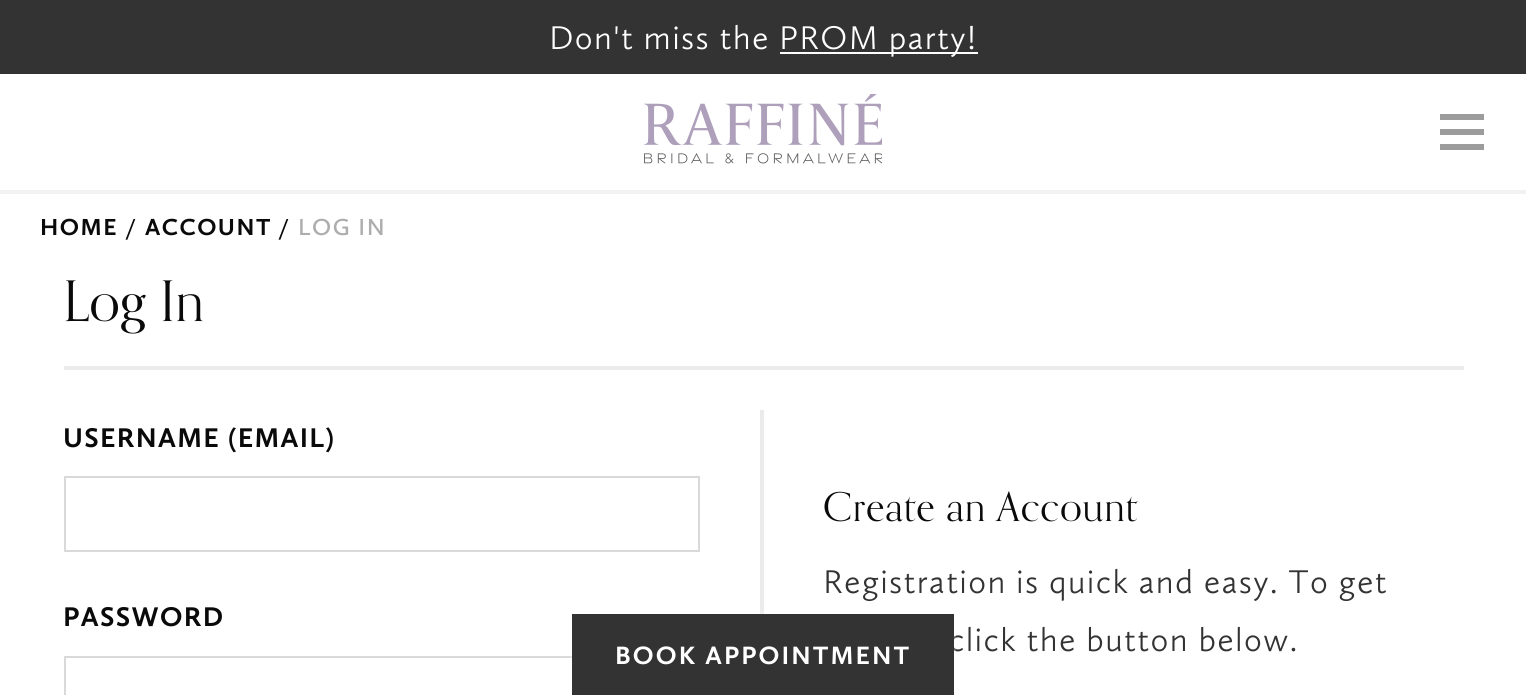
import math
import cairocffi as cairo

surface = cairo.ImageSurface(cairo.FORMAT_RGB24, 1526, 695)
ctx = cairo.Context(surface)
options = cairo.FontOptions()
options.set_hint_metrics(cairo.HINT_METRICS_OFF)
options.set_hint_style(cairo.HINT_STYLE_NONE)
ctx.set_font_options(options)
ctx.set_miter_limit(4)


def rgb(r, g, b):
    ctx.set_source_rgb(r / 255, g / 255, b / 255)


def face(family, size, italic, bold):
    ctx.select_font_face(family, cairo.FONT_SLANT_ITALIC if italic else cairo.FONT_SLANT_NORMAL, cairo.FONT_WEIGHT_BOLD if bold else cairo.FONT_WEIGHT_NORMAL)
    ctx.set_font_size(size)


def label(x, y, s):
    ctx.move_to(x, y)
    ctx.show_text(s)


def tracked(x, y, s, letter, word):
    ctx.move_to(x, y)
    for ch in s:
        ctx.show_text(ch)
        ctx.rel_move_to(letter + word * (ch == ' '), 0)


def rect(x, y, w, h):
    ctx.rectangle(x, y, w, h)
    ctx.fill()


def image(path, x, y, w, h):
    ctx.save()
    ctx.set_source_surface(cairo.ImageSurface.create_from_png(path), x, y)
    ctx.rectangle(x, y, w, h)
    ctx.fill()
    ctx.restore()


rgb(255, 255, 255)
ctx.paint()
rgb(51, 51, 51)
rect(0, 0, 1526, 74)
face('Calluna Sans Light', 34, 0, 0)
rgb(255, 255, 255)
tracked(549, 49, 'Don\'t miss the', 1.35, 0)
rect(780, 52, 198, 2)
tracked(779, 49, 'PROM party!', 1.35, 0)
rgb(242, 242, 242)
rect(0, 190, 1526, 4)
image('image0.png', 644, 94, 238, 70)
rgb(156, 156, 156)
ctx.new_path()
ctx.move_to(1440, 114)
ctx.line_to(1484, 114)
ctx.line_to(1484, 120)
ctx.line_to(1440, 120)
ctx.close_path()
ctx.move_to(1440, 129)
ctx.line_to(1484, 129)
ctx.line_to(1484, 135)
ctx.line_to(1440, 135)
ctx.close_path()
ctx.move_to(1440, 144)
ctx.line_to(1484, 144)
ctx.line_to(1484, 150)
ctx.line_to(1440, 150)
ctx.close_path()
ctx.fill()
rgb(235, 235, 235)
rect(760, 410, 4, 204)
ctx.rectangle(65, 657, 634, 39)
rgb(217, 217, 217)
ctx.stroke()
rgb(51, 51, 51)
tracked(949, 651, 'click the button below.', 1.35, 0)
ctx.rectangle(571, 613, 384, 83)
ctx.set_source_rgba(1, 1, 1, 0.25)
ctx.stroke()
rgb(51, 51, 51)
rect(572, 614, 382, 81)
face('Calluna Sans', 26, 0, 1)
rgb(255, 255, 255)
tracked(615, 664, 'BOOK APPOINTMENT', 2.1, 0)
face('Calluna Sans', 24, 0, 1)
rgb(10, 10, 10)
tracked(40, 235, 'HOME', 1.5, 0)
face('Calluna Sans SemiBold', 24, 0, 0)
tracked(125, 235, '/', 1.5, 0)
face('Calluna Sans', 24, 0, 1)
tracked(145, 235, 'ACCOUNT', 1.5, 0)
face('Calluna Sans SemiBold', 24, 0, 0)
tracked(278, 235, '/', 1.5, 0)
rgb(173, 173, 173)
tracked(298, 235, 'LOG IN', 1.5, 0)
rgb(235, 235, 235)
rect(64, 366, 1400, 4)
face('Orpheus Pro', 56, 0, 0)
rgb(10, 10, 10)
label(63, 321, 'Log In')
face('Calluna Sans', 28, 0, 1)
tracked(63, 447, 'USERNAME (EMAIL)', 1.35, 0)
ctx.rectangle(65, 477, 634, 74)
rgb(217, 217, 217)
ctx.stroke()
rgb(10, 10, 10)
tracked(63, 626, 'PASSWORD', 1.35, 0)
face('Orpheus Pro', 40, 0, 0)
tracked(823, 521, 'Create an Account', 0.75, 0)
face('Calluna Sans Light', 34, 0, 0)
rgb(51, 51, 51)
tracked(823, 593, 'Registration is quick and easy. To get', 1.35, 0)
surface.write_to_png('render.png')
